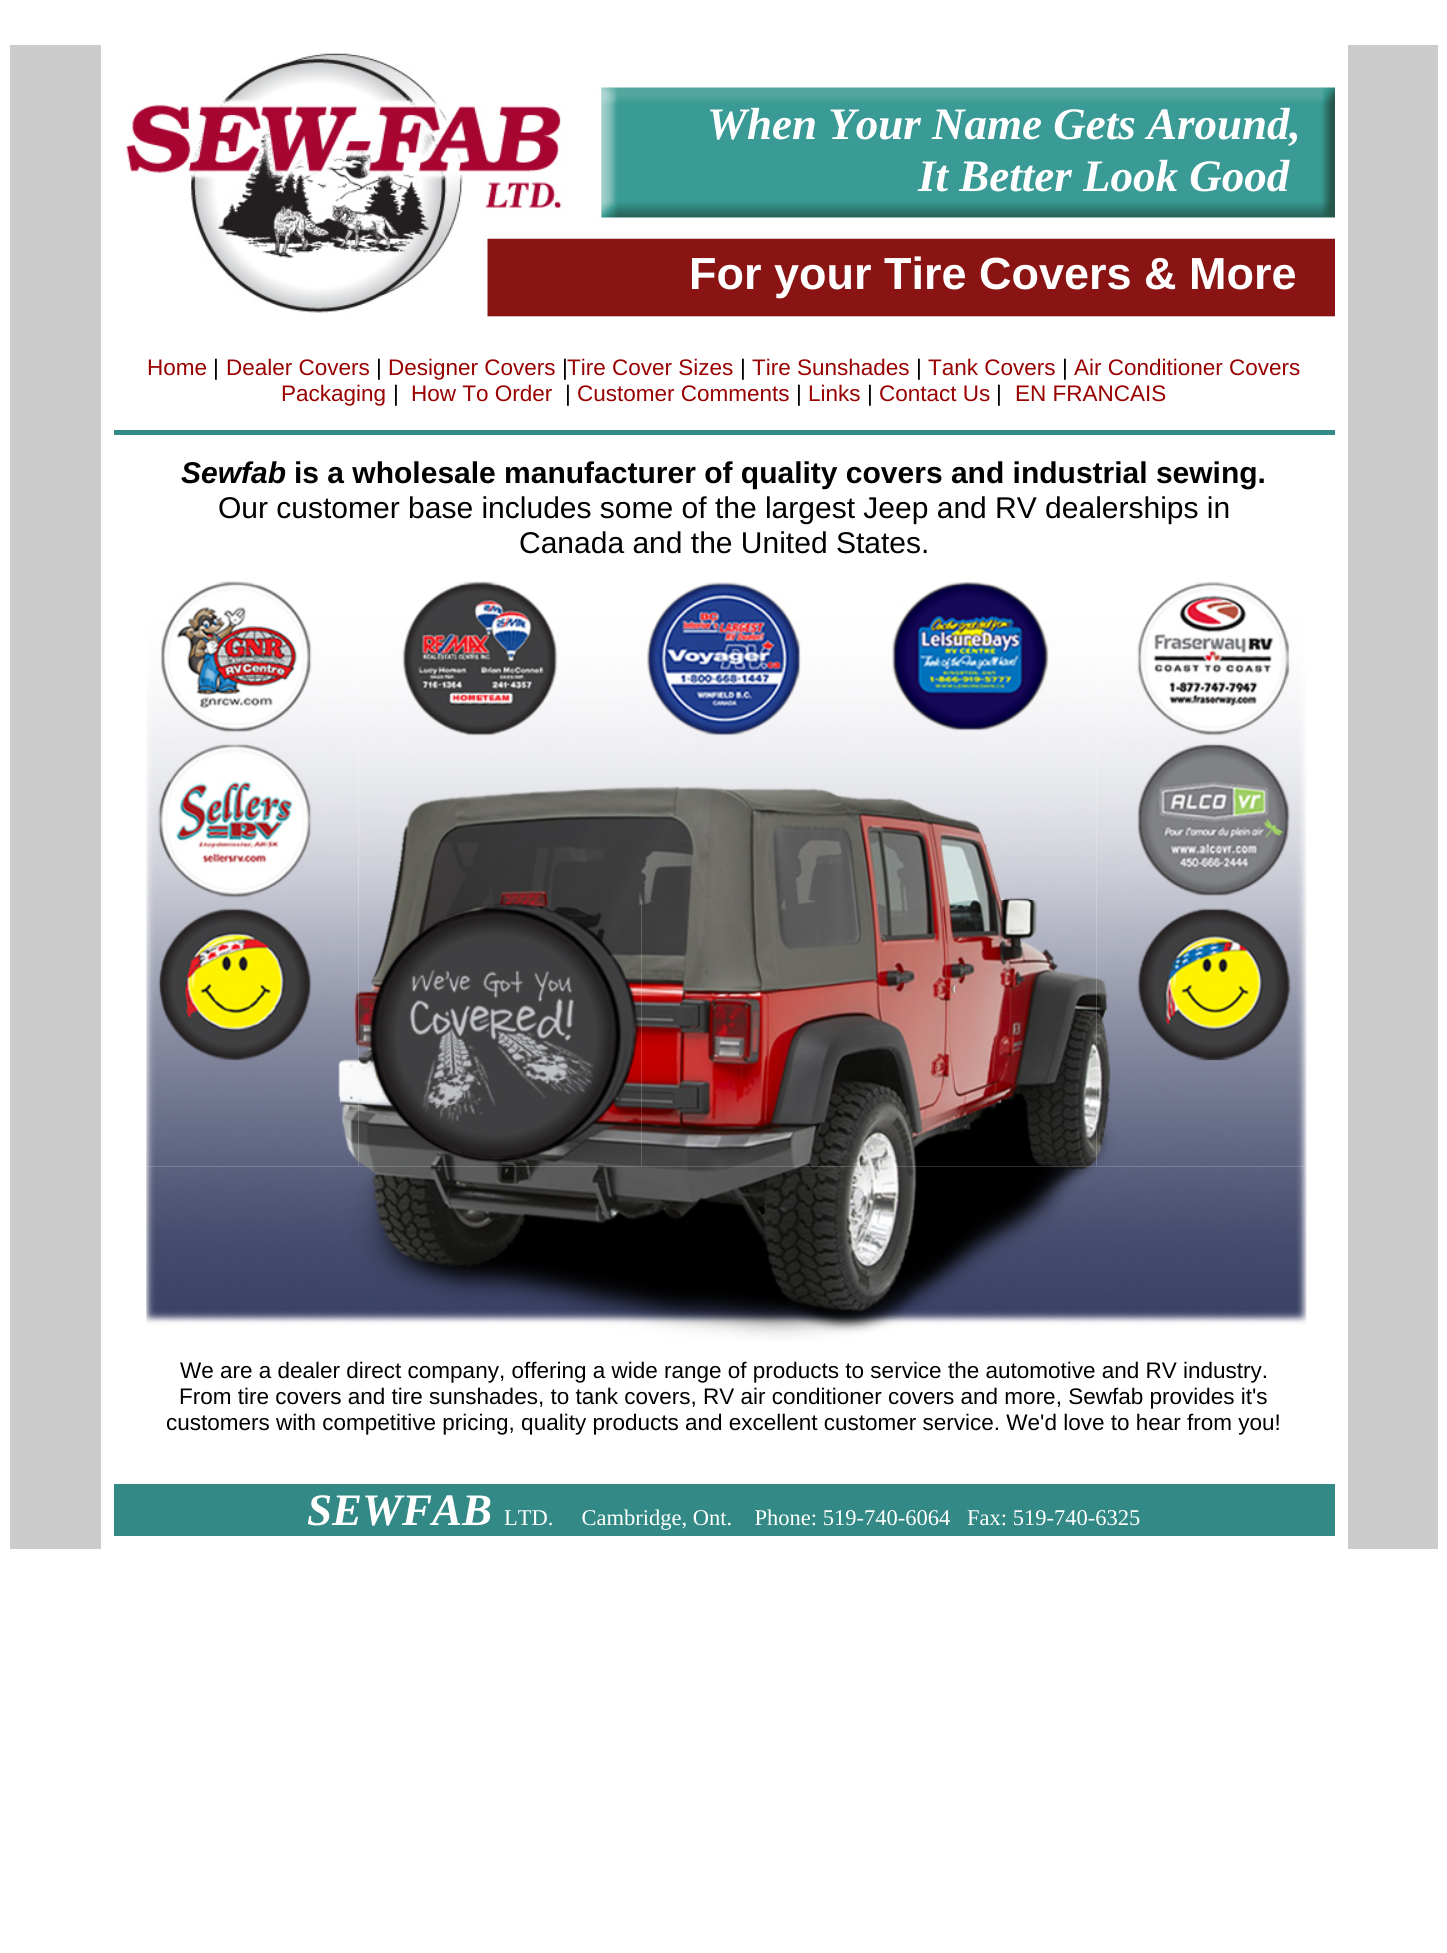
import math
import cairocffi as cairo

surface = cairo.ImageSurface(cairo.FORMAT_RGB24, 1447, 1953)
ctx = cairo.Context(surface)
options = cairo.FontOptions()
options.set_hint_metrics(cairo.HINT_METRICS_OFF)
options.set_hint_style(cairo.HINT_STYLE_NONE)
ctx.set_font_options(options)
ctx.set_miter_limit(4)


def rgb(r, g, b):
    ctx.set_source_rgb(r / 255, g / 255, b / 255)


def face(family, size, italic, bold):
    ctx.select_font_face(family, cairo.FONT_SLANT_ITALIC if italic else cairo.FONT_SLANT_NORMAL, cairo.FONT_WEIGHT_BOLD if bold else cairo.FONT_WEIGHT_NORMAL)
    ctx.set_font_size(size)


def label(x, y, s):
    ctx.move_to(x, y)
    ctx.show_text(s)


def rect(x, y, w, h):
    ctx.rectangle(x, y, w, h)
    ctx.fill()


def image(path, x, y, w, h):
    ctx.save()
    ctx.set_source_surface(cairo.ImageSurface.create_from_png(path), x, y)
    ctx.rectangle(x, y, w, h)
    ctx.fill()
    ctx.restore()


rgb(255, 255, 255)
ctx.paint()
rgb(204, 204, 204)
rect(10, 45, 1428, 1504)
rgb(255, 255, 255)
rect(101, 45, 1247, 1504)
image('image0.png', 126, 53, 1209, 264)
face('Liberation Serif', 45, 1, 1)
label(707, 139, 'When Your Name Gets Around,')
label(918, 191, 'It Better Look Good')
face('Liberation Sans', 45, 0, 1)
label(689, 289, 'For your Tire Covers & More')
face('Liberation Sans', 22.5, 0, 0)
rgb(153, 0, 0)
label(147, 375, 'Home')
rgb(0, 0, 0)
label(213, 375, '|')
rgb(153, 0, 0)
label(226, 375, 'Dealer Covers')
rgb(0, 0, 0)
label(376, 375, '|')
rgb(153, 0, 0)
label(388, 375, 'Designer Covers')
rgb(0, 0, 0)
label(562, 375, '|')
rgb(153, 0, 0)
label(567, 375, 'Tire Cover Sizes')
rgb(0, 0, 0)
label(740, 375, '|')
rgb(153, 0, 0)
label(752, 375, 'Tire Sunshades')
rgb(0, 0, 0)
label(916, 375, '|')
rgb(153, 0, 0)
label(928, 375, 'Tank Covers')
rgb(0, 0, 0)
label(1062, 375, '|')
rgb(153, 0, 0)
label(1074, 375, 'Air Conditioner Covers')
label(281, 401, 'Packaging')
rgb(0, 0, 0)
label(393, 401, '|')
rgb(153, 0, 0)
label(411, 401, 'How To Order')
rgb(0, 0, 0)
label(565, 401, '|')
rgb(153, 0, 0)
label(577, 401, 'Customer Comments')
rgb(0, 0, 0)
label(796, 401, '|')
rgb(153, 0, 0)
label(808, 401, 'Links')
rgb(0, 0, 0)
label(867, 401, '|')
rgb(153, 0, 0)
label(879, 401, 'Contact Us')
rgb(0, 0, 0)
label(996, 401, '|')
rgb(153, 0, 0)
label(1015, 401, 'EN FRANCAIS')
rgb(50, 137, 133)
rect(114, 430, 1221, 5)
face('Liberation Sans', 30, 1, 1)
rgb(0, 0, 0)
label(181, 483, 'Sewfab')
face('Liberation Sans', 30, 0, 1)
label(294, 483, 'is a wholesale manufacturer of quality covers and industrial sewing.')
face('Liberation Sans', 30, 0, 0)
label(218, 518, 'Our customer base includes some of the largest Jeep and RV dealerships in')
label(519, 553, 'Canada and the United States.')
image('image1.png', 146, 581, 213, 159)
image('image2.png', 359, 581, 283, 159)
image('image3.png', 641, 582, 209, 158)
image('image4.png', 850, 581, 247, 159)
image('image5.png', 1096, 581, 210, 159)
image('image6.png', 146, 740, 213, 160)
image('image7.png', 359, 740, 738, 160)
image('image8.png', 1096, 740, 211, 160)
image('image9.png', 146, 900, 213, 267)
image('image10.png', 358, 900, 284, 267)
image('image11.png', 641, 900, 456, 267)
image('image12.png', 1096, 900, 211, 267)
image('image13.png', 146, 1166, 1161, 175)
face('Liberation Sans', 22.5, 0, 0)
label(180, 1378, 'We are a dealer direct company, offering a wide range of products to service the automotive and RV industry.')
label(179, 1404, 'From tire covers and tire sunshades, to tank covers, RV air conditioner covers and more, Sewfab provides it\'s')
label(166, 1430, 'customers with competitive pricing, quality products and excellent customer service. We\'d love to hear from you!')
rgb(50, 137, 133)
rect(114, 1484, 1221, 52)
face('Liberation Serif', 45, 1, 1)
rgb(255, 255, 255)
label(307, 1525, 'SEWFAB')
face('Liberation Serif', 22.5, 0, 0)
label(504, 1525, 'LTD.     Cambridge, Ont.    Phone: 519-740-6064   Fax: 519-740-6325')
surface.write_to_png('render.png')
